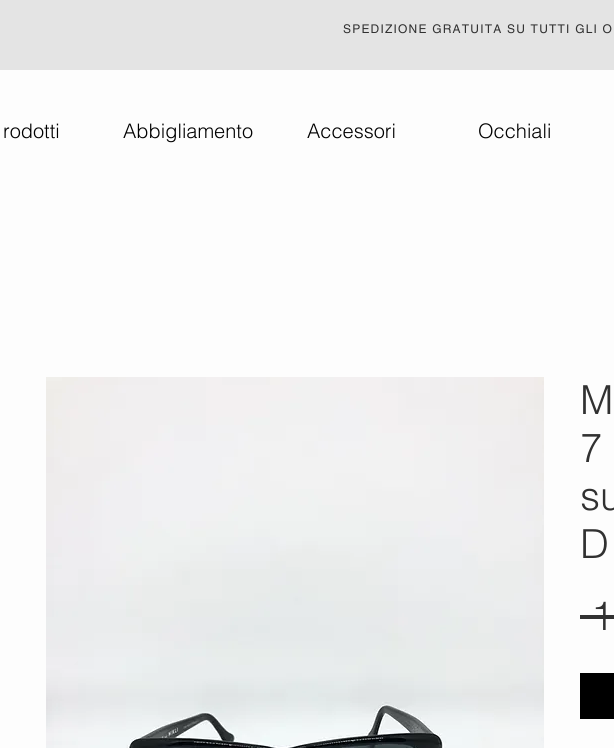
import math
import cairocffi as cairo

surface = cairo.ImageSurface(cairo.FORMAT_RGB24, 614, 748)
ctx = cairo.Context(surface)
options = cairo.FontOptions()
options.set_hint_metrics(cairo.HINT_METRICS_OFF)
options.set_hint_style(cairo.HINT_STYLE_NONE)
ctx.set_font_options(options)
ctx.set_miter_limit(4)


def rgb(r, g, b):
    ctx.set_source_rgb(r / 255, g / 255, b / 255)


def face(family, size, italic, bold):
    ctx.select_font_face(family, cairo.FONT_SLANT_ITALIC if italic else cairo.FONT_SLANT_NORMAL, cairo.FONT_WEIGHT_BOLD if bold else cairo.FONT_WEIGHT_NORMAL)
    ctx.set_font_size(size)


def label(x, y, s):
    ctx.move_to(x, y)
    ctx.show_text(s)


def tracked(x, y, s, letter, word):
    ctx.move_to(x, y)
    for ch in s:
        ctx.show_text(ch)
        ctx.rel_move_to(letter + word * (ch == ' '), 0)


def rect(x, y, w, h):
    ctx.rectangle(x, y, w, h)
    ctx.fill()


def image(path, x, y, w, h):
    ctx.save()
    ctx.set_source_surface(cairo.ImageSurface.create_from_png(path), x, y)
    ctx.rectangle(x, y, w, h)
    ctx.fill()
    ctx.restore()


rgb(253, 253, 253)
ctx.paint()
rgb(228, 228, 228)
rect(0, 0, 614, 70)
face('helvetica', 12, 0, 0)
rgb(49, 49, 49)
tracked(343, 33, 'SPEDIZIONE GRATUITA SU TUTTI GLI O', 1.2, 0)
face('helvetica Light', 20, 0, 0)
rgb(0, 0, 0)
label(3, 138, 'rodotti')
label(123, 138, 'Abbigliamento')
label(307, 138, 'Accessori')
label(478, 138, 'Occhiali')
image('image0.png', 46, 377, 498, 371)
face('helvetica Light', 40, 0, 0)
rgb(49, 49, 49)
label(580, 414, 'M')
label(580, 462, '7')
label(580, 510, 'su')
label(580, 558, 'D')
label(591, 630, '1')
rect(580, 615, 34, 4)
rgb(0, 0, 0)
rect(580, 673, 34, 46)
surface.write_to_png('render.png')
